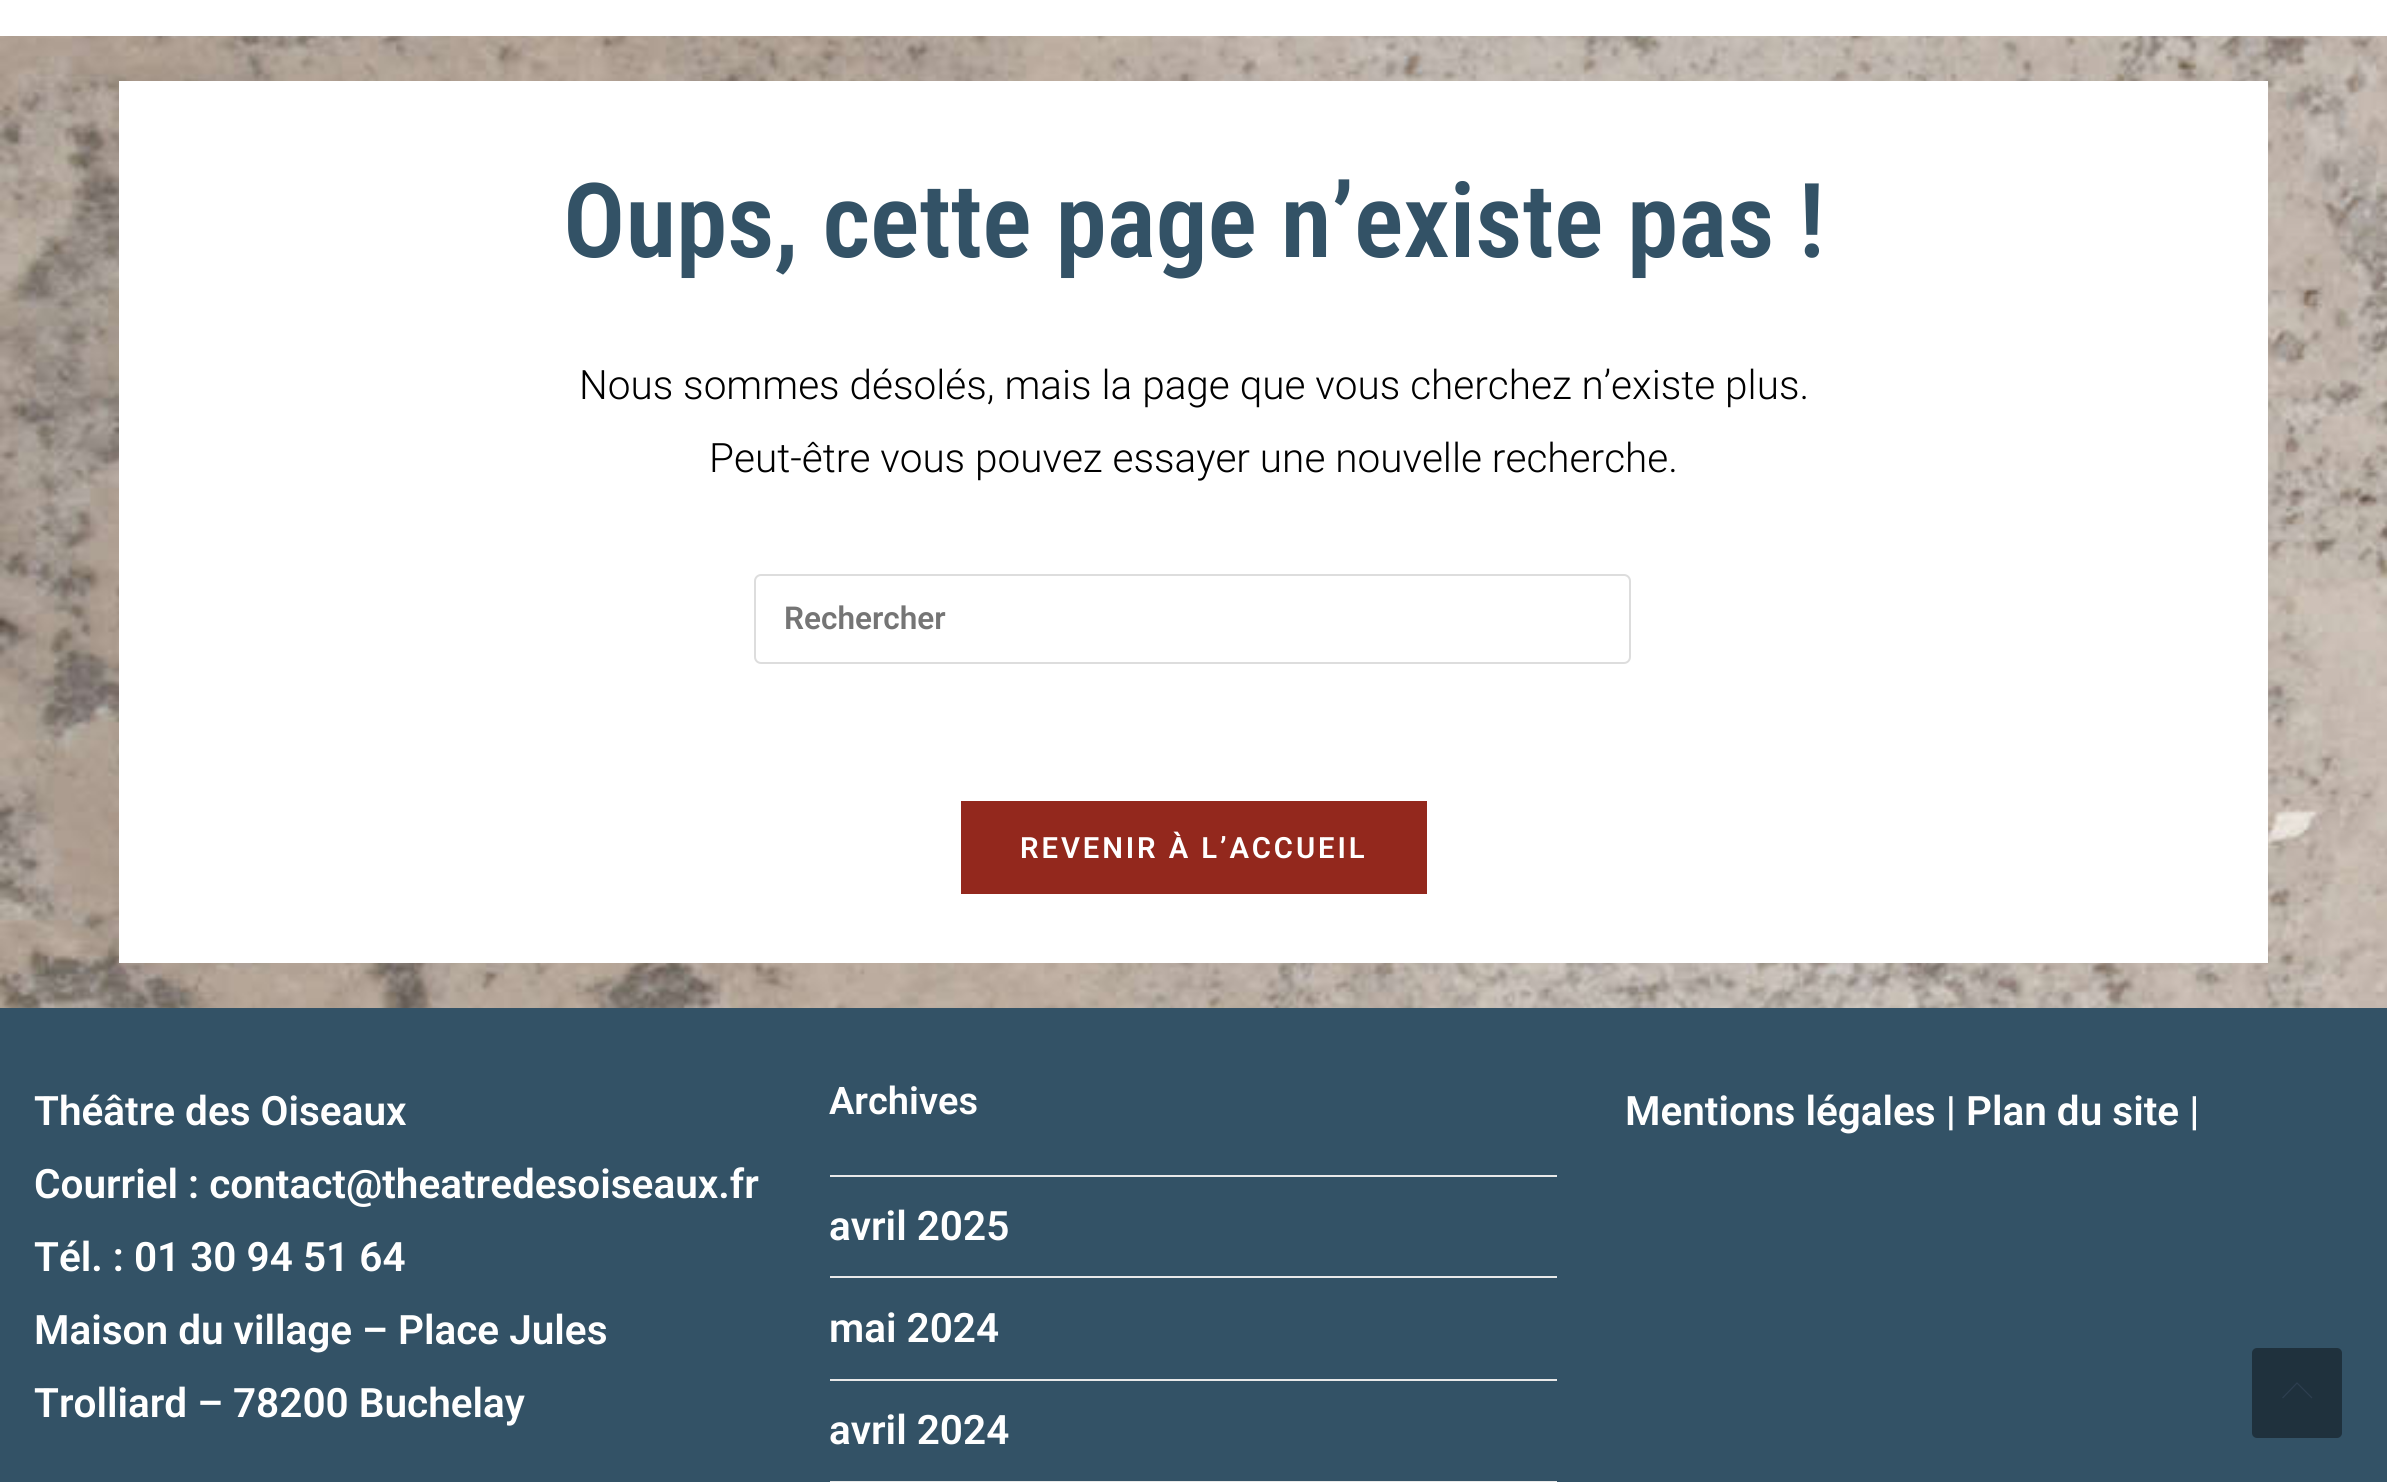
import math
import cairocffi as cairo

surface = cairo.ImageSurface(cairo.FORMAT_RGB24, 2387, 1482)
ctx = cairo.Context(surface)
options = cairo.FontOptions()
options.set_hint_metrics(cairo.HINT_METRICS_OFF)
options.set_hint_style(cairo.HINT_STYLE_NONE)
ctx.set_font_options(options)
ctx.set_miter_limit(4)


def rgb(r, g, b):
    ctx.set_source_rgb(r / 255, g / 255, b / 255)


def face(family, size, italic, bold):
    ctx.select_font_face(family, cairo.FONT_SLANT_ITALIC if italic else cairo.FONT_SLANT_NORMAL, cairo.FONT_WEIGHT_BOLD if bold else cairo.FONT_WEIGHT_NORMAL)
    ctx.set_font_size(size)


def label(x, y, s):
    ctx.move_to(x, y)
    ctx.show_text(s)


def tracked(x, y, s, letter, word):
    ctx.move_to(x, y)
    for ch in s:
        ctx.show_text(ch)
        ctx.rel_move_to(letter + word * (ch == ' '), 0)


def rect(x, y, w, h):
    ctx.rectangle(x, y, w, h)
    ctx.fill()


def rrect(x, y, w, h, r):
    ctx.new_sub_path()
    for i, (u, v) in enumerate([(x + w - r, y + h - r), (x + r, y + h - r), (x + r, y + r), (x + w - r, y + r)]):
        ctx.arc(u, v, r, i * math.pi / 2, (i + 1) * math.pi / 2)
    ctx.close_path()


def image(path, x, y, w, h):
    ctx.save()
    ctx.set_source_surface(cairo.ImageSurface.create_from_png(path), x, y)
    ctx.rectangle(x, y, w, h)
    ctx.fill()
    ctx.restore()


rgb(255, 255, 255)
ctx.paint()
image('image0.png', 0, 36, 2387, 972)
rgb(255, 255, 255)
rect(119, 81, 2149, 882)
face('Roboto Condensed SemiBold', 103.5, 0, 0)
rgb(51, 82, 102)
label(563, 257, 'Oups, cette page n’existe pas !')
face('Roboto Light', 40.5, 0, 0)
rgb(0, 0, 0)
label(579, 399, 'Nous sommes désolés, mais la page que vous cherchez n’existe plus.')
label(709, 472, 'Peut-être vous pouvez essayer une nouvelle recherche.')
rrect(755, 575, 875, 88, 6)
rgb(221, 221, 221)
ctx.stroke()
face('Roboto SemiBold', 31.5, 0, 0)
rgb(117, 117, 117)
label(784, 629, 'Rechercher')
rgb(147, 40, 29)
rect(961, 801, 466, 93)
face('Roboto SemiBold', 29.25, 0, 0)
rgb(255, 255, 255)
tracked(1020, 858, 'REVENIR À L’ACCUEIL', 2.9, 0)
rgb(51, 82, 102)
rect(0, 1008, 2387, 474)
face('Roboto SemiBold', 40.5, 0, 0)
rgb(255, 255, 255)
label(34, 1125, 'Théâtre des Oiseaux')
label(34, 1198, 'Courriel : contact@theatredesoiseaux.fr')
label(34, 1271, 'Tél. : 01 30 94 51 64')
label(34, 1344, 'Maison du village – Place Jules')
label(34, 1417, 'Trolliard – 78200 Buchelay')
face('Roboto SemiBold', 38, 0, 0)
label(829, 1114, 'Archives')
rgb(233, 233, 233)
rect(830, 1175, 727, 2)
rect(830, 1276, 727, 2)
face('Roboto SemiBold', 40.5, 0, 0)
rgb(255, 255, 255)
label(829, 1240, 'avril 2025')
rgb(233, 233, 233)
rect(830, 1379, 727, 2)
rgb(255, 255, 255)
label(829, 1342, 'mai 2024')
rgb(233, 233, 233)
rect(830, 1481, 727, 1)
rgb(255, 255, 255)
label(829, 1444, 'avril 2024')
label(1625, 1125, 'Mentions légales | Plan du site |')
rgb(31, 49, 61)
rrect(2252, 1348, 90, 90, 5)
ctx.fill()
ctx.new_path()
ctx.move_to(2282.5, 1398)
ctx.line_to(2297, 1383)
ctx.line_to(2312, 1398)
rgb(45, 62, 80)
ctx.set_line_width(1.2)
ctx.stroke()
surface.write_to_png('render.png')
